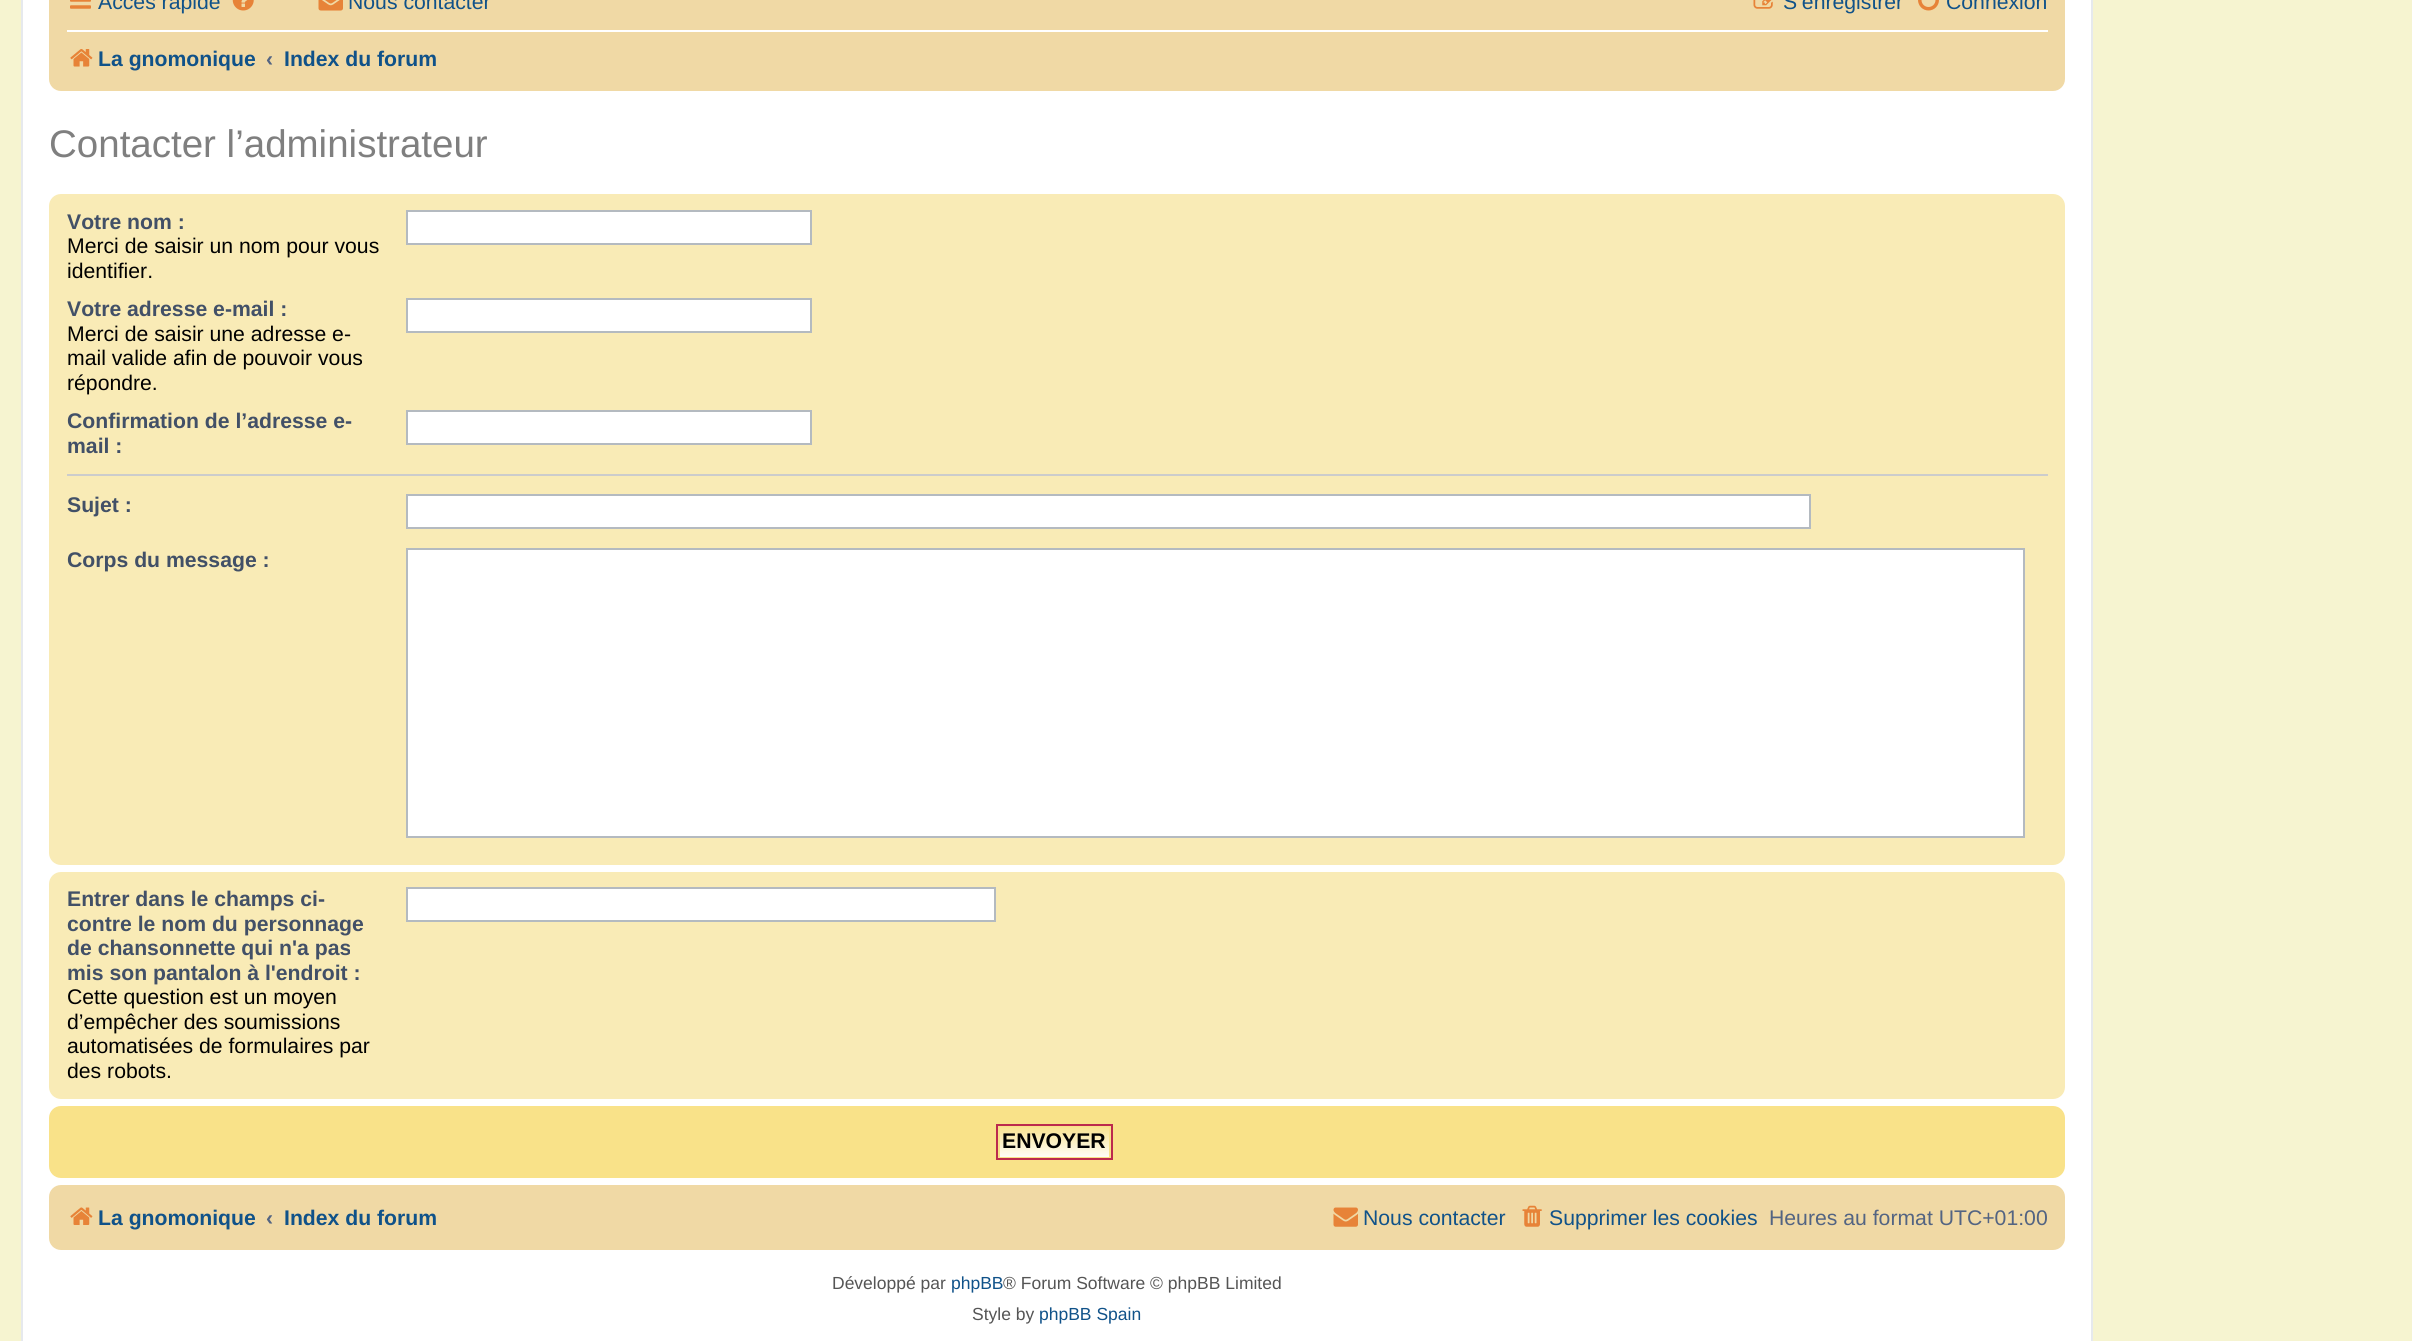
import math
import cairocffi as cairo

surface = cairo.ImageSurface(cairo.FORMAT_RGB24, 2412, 1341)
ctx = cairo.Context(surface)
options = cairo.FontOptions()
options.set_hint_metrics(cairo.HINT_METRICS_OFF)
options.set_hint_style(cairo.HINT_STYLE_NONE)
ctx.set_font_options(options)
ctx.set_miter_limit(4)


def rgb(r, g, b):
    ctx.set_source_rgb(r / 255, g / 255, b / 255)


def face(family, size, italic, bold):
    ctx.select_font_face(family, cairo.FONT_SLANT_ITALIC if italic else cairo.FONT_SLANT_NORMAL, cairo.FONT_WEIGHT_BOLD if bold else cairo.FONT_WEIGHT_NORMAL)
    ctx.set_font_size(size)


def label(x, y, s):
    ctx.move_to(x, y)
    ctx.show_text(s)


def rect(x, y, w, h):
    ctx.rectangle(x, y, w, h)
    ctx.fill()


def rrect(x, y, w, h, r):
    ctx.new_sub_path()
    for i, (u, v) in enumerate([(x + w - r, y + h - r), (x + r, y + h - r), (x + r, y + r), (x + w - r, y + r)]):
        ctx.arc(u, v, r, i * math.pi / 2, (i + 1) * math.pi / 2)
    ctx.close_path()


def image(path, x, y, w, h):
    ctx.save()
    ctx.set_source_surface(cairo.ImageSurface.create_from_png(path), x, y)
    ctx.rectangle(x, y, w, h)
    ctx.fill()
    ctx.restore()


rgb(246, 244, 208)
ctx.paint()
rgb(255, 255, 255)
ctx.rectangle(22, -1, 2070, 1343)
ctx.fill_preserve()
rgb(230, 233, 237)
ctx.stroke()
rgb(240, 217, 165)
rrect(49, -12, 2016, 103, 12)
ctx.fill()
image('image0.png', 70, 0, 21, 9)
face('Liberation Sans', 21.2, 0, 0)
rgb(16, 82, 137)
label(98, 9, 'Accès rapide')
image('image1.png', 232, 0, 22, 11)
image('image2.png', 318, 0, 25, 11)
label(348, 9, 'Nous contacter')
image('image3.png', 1753, 0, 20, 9)
label(1783, 9, 'S’enregistrer')
image('image4.png', 1918, 0, 21, 11)
label(1946, 9, 'Connexion')
rgb(255, 255, 255)
rect(67, 30, 1981, 2)
image('image5.png', 70, 49, 23, 18)
face('Liberation Sans', 21.2, 0, 1)
rgb(16, 82, 137)
label(98, 66, 'La gnomonique')
rgb(83, 100, 130)
label(266, 66, '‹')
rgb(16, 82, 137)
label(284, 66, 'Index du forum')
face('Liberation Sans', 38.5, 0, 0)
rgb(127, 127, 127)
label(49, 157, 'Contacter l’administrateur')
rgb(249, 235, 182)
rrect(49, 194, 2016, 671, 12)
ctx.fill()
face('Liberation Sans', 21.2, 0, 1)
rgb(66, 80, 103)
label(67, 229, 'Votre nom :')
face('Liberation Sans', 21.2, 0, 0)
rgb(0, 0, 0)
label(67, 253, 'Merci de saisir un nom pour vous')
label(67, 278, 'identifier.')
rgb(255, 255, 255)
ctx.rectangle(407, 211, 404, 33)
ctx.fill_preserve()
rgb(180, 186, 192)
ctx.stroke()
face('Liberation Sans', 21.2, 0, 1)
rgb(66, 80, 103)
label(67, 316, 'Votre adresse e-mail :')
face('Liberation Sans', 21.2, 0, 0)
rgb(0, 0, 0)
label(67, 341, 'Merci de saisir une adresse e-')
label(67, 365, 'mail valide afin de pouvoir vous')
label(67, 390, 'répondre.')
rgb(255, 255, 255)
ctx.rectangle(407, 299, 404, 33)
ctx.fill_preserve()
rgb(180, 186, 192)
ctx.stroke()
face('Liberation Sans', 21.2, 0, 1)
rgb(66, 80, 103)
label(67, 428, 'Confirmation de l’adresse e-')
label(67, 453, 'mail :')
rgb(255, 255, 255)
ctx.rectangle(407, 411, 404, 33)
ctx.fill_preserve()
rgb(180, 186, 192)
ctx.stroke()
rgb(204, 204, 204)
rect(67, 474, 1981, 2)
rgb(66, 80, 103)
label(67, 512, 'Sujet :')
rgb(255, 255, 255)
ctx.rectangle(407, 495, 1403, 33)
ctx.fill_preserve()
rgb(180, 186, 192)
ctx.stroke()
rgb(66, 80, 103)
label(67, 567, 'Corps du message :')
rgb(255, 255, 255)
ctx.rectangle(407, 549, 1617, 288)
ctx.fill_preserve()
rgb(180, 186, 192)
ctx.stroke()
rgb(249, 235, 182)
rrect(49, 872, 2016, 227, 12)
ctx.fill()
rgb(66, 80, 103)
label(67, 906, 'Entrer dans le champs ci-')
label(67, 931, 'contre le nom du personnage')
label(67, 955, 'de chansonnette qui n\'a pas')
label(67, 980, 'mis son pantalon à l\'endroit :')
face('Liberation Sans', 21.2, 0, 0)
rgb(0, 0, 0)
label(67, 1004, 'Cette question est un moyen')
label(67, 1029, 'd’empêcher des soumissions')
label(67, 1053, 'automatisées de formulaires par')
label(67, 1078, 'des robots.')
rgb(255, 255, 255)
ctx.rectangle(407, 888, 588, 33)
ctx.fill_preserve()
rgb(180, 186, 192)
ctx.stroke()
rgb(249, 226, 137)
rrect(49, 1106, 2016, 72, 12)
ctx.fill()
gradient = cairo.LinearGradient(1054, 1125, 1054, 1159)
gradient.add_color_stop_rgba(0, 0.976, 0.886, 0.537, 1)
gradient.add_color_stop_rgba(1, 1, 1, 1, 1)
ctx.set_source(gradient)
rect(1000, 1127, 109, 30)
ctx.rectangle(997, 1125, 115, 34)
rgb(188, 42, 77)
ctx.stroke()
face('Liberation Sans', 21.2, 0, 1)
rgb(0, 0, 0)
label(1002, 1148, 'ENVOYER')
rgb(240, 217, 165)
rrect(49, 1185, 2016, 65, 12)
ctx.fill()
image('image6.png', 70, 1207, 23, 18)
rgb(16, 82, 137)
label(98, 1225, 'La gnomonique')
rgb(83, 100, 130)
label(266, 1225, '‹')
rgb(16, 82, 137)
label(284, 1225, 'Index du forum')
image('image7.png', 1333, 1207, 25, 20)
face('Liberation Sans', 21.2, 0, 0)
label(1363, 1225, 'Nous contacter')
image('image8.png', 1522, 1205, 20, 22)
label(1549, 1225, 'Supprimer les cookies')
rgb(83, 100, 130)
label(1769, 1225, 'Heures au format UTC+01:00')
face('Liberation Sans', 17.5, 0, 0)
rgb(85, 85, 85)
label(832, 1289, 'Développé par')
rgb(16, 82, 137)
label(951, 1289, 'phpBB')
rgb(85, 85, 85)
label(1003, 1289, '® Forum Software © phpBB Limited')
label(972, 1320, 'Style by')
rgb(16, 82, 137)
label(1039, 1320, 'phpBB Spain')
surface.write_to_png('render.png')
